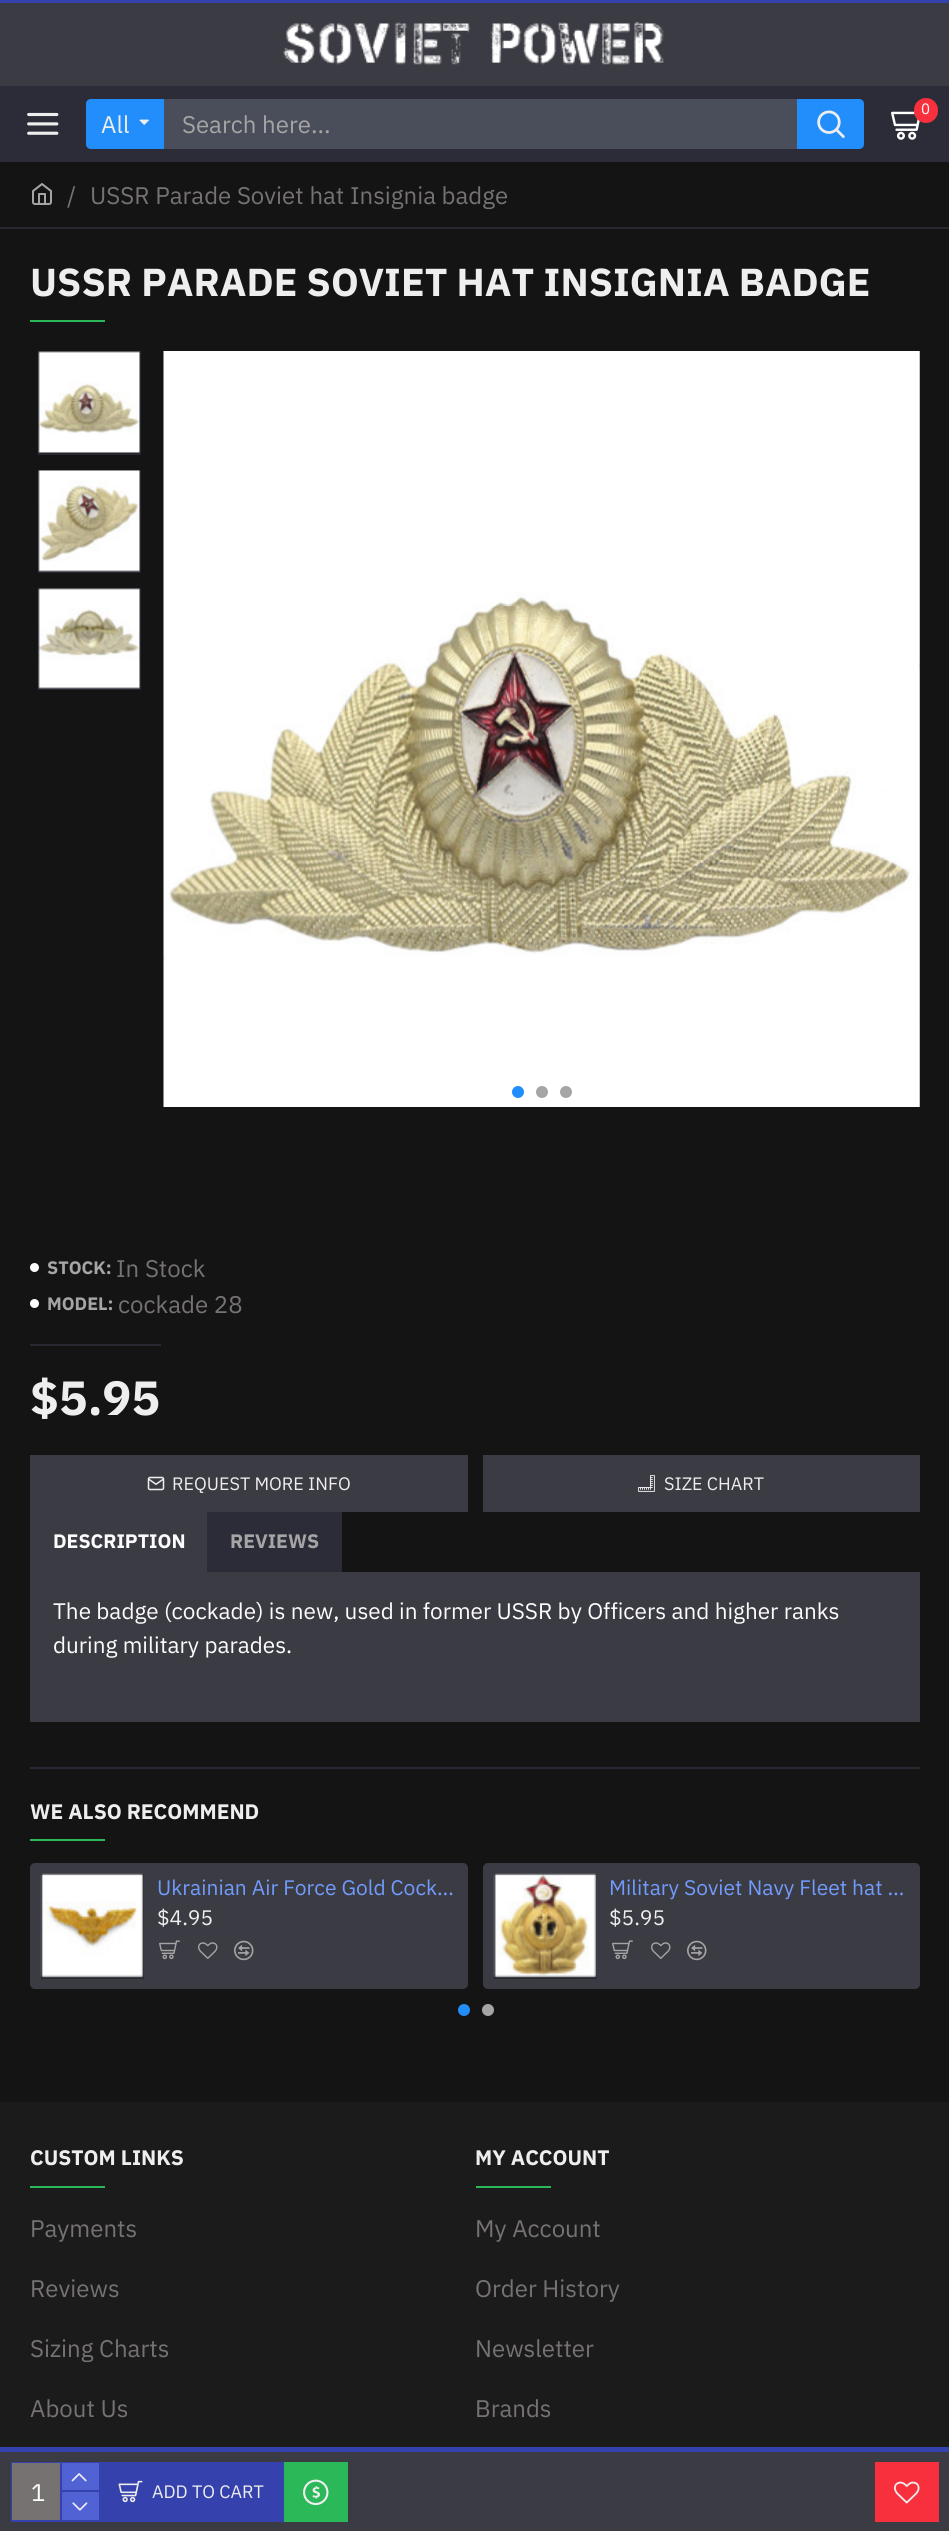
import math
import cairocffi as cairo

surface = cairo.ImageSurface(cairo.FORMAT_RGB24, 949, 2531)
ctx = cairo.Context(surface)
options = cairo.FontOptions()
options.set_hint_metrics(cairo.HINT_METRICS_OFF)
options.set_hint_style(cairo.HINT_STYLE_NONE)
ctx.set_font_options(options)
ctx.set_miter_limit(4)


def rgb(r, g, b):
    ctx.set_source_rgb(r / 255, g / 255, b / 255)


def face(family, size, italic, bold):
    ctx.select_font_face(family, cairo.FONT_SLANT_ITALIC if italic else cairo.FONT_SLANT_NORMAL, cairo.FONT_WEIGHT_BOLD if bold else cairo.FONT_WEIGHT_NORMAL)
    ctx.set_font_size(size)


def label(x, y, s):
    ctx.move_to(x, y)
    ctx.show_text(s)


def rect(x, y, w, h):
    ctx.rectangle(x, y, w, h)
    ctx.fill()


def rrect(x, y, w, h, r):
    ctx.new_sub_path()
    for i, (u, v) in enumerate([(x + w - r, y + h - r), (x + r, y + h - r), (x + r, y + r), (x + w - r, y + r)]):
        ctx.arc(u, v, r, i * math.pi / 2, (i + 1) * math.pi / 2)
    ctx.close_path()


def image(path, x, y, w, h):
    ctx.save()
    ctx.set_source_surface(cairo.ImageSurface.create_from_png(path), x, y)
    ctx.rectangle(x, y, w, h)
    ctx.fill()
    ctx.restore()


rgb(20, 20, 20)
ctx.paint()
rgb(53, 66, 174)
rect(0, 0, 949, 3)
rgb(59, 59, 67)
rect(0, 3, 949, 83)
image('image0.png', 283, 22, 382, 43)
rgb(44, 44, 57)
rect(0, 86, 949, 76)
image('image1.png', 891, 111, 29, 29)
rgb(248, 48, 61)
rrect(914, 98, 24, 25, 12)
ctx.fill()
face('IBM Plex Sans', 15, 0, 0)
rgb(253, 253, 253)
label(921, 114, '0')
image('image2.png', 27, 112, 32, 23)
rgb(34, 142, 251)
ctx.new_path()
ctx.move_to(91, 99)
ctx.line_to(164, 99)
ctx.line_to(164, 149)
ctx.line_to(91, 149)
ctx.curve_to(88, 149, 86, 147, 86, 144)
ctx.line_to(86, 104)
ctx.curve_to(86, 101, 88, 99, 91, 99)
ctx.close_path()
ctx.fill()
face('IBM Plex Sans', 24, 0, 0)
rgb(238, 238, 238)
label(101, 133, 'All')
image('image3.png', 139, 119, 10, 6)
rgb(74, 78, 90)
rect(164, 99, 633, 50)
rgb(165, 165, 165)
label(182, 133, 'Search here...')
rgb(34, 142, 251)
ctx.new_path()
ctx.move_to(797, 99)
ctx.line_to(859, 99)
ctx.curve_to(862, 99, 864, 101, 864, 104)
ctx.line_to(864, 144)
ctx.curve_to(864, 147, 862, 149, 859, 149)
ctx.line_to(797, 149)
ctx.close_path()
ctx.fill()
image('image4.png', 817, 110, 28, 28)
image('image5.png', 32, 183, 20, 22)
rgb(118, 114, 114)
label(67, 204, '/')
label(90, 204, 'USSR Parade Soviet hat Insignia badge')
rgb(40, 40, 50)
rect(0, 227, 949, 2)
face('IBM Plex Sans', 39, 0, 1)
rgb(238, 238, 238)
label(30, 296, 'USSR PARADE SOVIET HAT INSIGNIA BADGE')
rgb(42, 184, 88)
rect(30, 320, 75, 2)
ctx.rectangle(39, 352, 101, 102)
rgb(40, 40, 50)
ctx.stroke()
image('image6.png', 38, 351, 102, 102)
ctx.rectangle(39, 471, 101, 101)
ctx.stroke()
image('image7.png', 38, 470, 102, 102)
ctx.rectangle(39, 589, 101, 100)
ctx.stroke()
image('image8.png', 38, 588, 102, 101)
image('image9.png', 163, 351, 757, 756)
image('image10.png', 919, 351, 1, 756)
rgb(34, 142, 251)
ctx.arc(518, 1092, 6, 0, 2 * math.pi)
ctx.fill()
rgb(165, 165, 165)
ctx.arc(542, 1092, 6, 0, 2 * math.pi)
ctx.fill()
ctx.arc(566, 1092, 6, 0, 2 * math.pi)
ctx.fill()
image('image11.png', 30, 1263, 9, 9)
face('IBM Plex Sans', 18, 0, 1)
label(47, 1274, 'STOCK:')
face('IBM Plex Sans', 24, 0, 0)
rgb(118, 114, 114)
label(116, 1277, 'In Stock')
image('image11.png', 30, 1299, 9, 9)
face('IBM Plex Sans', 18, 0, 1)
rgb(165, 165, 165)
label(47, 1310, 'MODEL:')
face('IBM Plex Sans', 24, 0, 0)
rgb(118, 114, 114)
label(118, 1313, 'cockade 28')
rgb(40, 40, 50)
rect(30, 1344, 131, 2)
face('IBM Plex Sans', 48, 0, 1)
rgb(238, 238, 238)
label(30, 1415, '$5.95')
rgb(59, 59, 67)
rect(0, 2452, 949, 79)
rgb(53, 66, 174)
rect(0, 2447, 949, 5)
ctx.rectangle(12, 2463, 88, 58)
ctx.stroke()
rgb(118, 114, 114)
rect(12, 2463, 48, 57)
face('IBM Plex Sans', 24, 0, 0)
rgb(253, 253, 253)
label(31, 2501, '1')
rgb(53, 66, 174)
rect(60, 2463, 2, 57)
rgb(81, 98, 213)
rect(62, 2463, 37, 27)
rgb(53, 66, 174)
rect(62, 2490, 37, 2)
image('image12.png', 71, 2473, 16, 9)
rgb(81, 98, 213)
rect(62, 2492, 37, 28)
image('image13.png', 72, 2502, 16, 9)
rgb(53, 66, 174)
rect(101, 2462, 183, 60)
image('image14.png', 118, 2480, 25, 23)
face('IBM Plex Sans', 18, 0, 0)
rgb(238, 238, 238)
label(152, 2498, 'ADD TO CART')
rgb(42, 184, 88)
rect(284, 2462, 64, 60)
image('image15.png', 303, 2479, 26, 27)
rgb(248, 48, 61)
rect(875, 2462, 64, 60)
image('image16.png', 894, 2481, 26, 23)
rgb(59, 59, 67)
rect(30, 1455, 438, 57)
image('image17.png', 147, 1476, 18, 15)
rgb(238, 238, 238)
label(172, 1490, 'REQUEST MORE INFO')
rgb(59, 59, 67)
rect(483, 1455, 437, 57)
image('image18.png', 638, 1475, 17, 17)
rgb(238, 238, 238)
label(664, 1490, 'SIZE CHART')
rgb(59, 59, 67)
rect(30, 1512, 177, 60)
face('IBM Plex Sans', 19.5, 0, 1)
rgb(253, 253, 253)
label(53, 1548, 'DESCRIPTION')
rgb(44, 44, 57)
rect(207, 1512, 135, 60)
rgb(165, 165, 165)
label(230, 1548, 'REVIEWS')
rgb(59, 59, 67)
rect(30, 1572, 890, 150)
face('IBM Plex Sans', 22.5, 0, 0)
rgb(253, 253, 253)
label(53, 1619, 'The badge (cockade) is new, used in former USSR by Officers and higher ranks')
label(53, 1653, 'during military parades.')
rgb(40, 40, 50)
rect(30, 1767, 890, 2)
face('IBM Plex Sans', 21, 0, 1)
rgb(238, 238, 238)
label(30, 1819, 'WE ALSO RECOMMEND')
rgb(42, 184, 88)
rect(30, 1839, 75, 2)
rgb(59, 59, 67)
rrect(30, 1863, 438, 126, 5)
ctx.fill()
ctx.rectangle(42, 1875, 101, 103)
rgb(40, 40, 50)
ctx.stroke()
image('image19.png', 40, 1873, 104, 105)
face('IBM Plex Sans', 21, 0, 0)
rgb(113, 155, 252)
label(157, 1895, 'Ukrainian Air Force Gold Cock…')
rgb(238, 238, 238)
label(157, 1925, '$4.95')
image('image20.png', 159, 1940, 21, 20)
image('image21.png', 198, 1942, 20, 17)
image('image22.png', 234, 1940, 20, 21)
rgb(59, 59, 67)
rrect(483, 1863, 437, 126, 5)
ctx.fill()
ctx.rectangle(495, 1875, 101, 103)
rgb(40, 40, 50)
ctx.stroke()
image('image23.png', 493, 1873, 104, 105)
rgb(113, 155, 252)
label(609, 1895, 'Military Soviet Navy Fleet hat …')
rgb(238, 238, 238)
label(609, 1925, '$5.95')
image('image20.png', 612, 1940, 21, 20)
image('image21.png', 651, 1942, 20, 17)
image('image22.png', 687, 1940, 20, 21)
rgb(34, 142, 251)
ctx.arc(464, 2010, 6, 0, 2 * math.pi)
ctx.fill()
rgb(165, 165, 165)
ctx.arc(488, 2010, 6, 0, 2 * math.pi)
ctx.fill()
rgb(27, 27, 27)
rect(0, 2102, 949, 345)
face('IBM Plex Sans', 21, 0, 1)
rgb(238, 238, 238)
label(30, 2165, 'CUSTOM LINKS')
rgb(42, 184, 88)
rect(30, 2186, 75, 2)
face('IBM Plex Sans', 24, 0, 0)
rgb(118, 114, 114)
label(30, 2237, 'Payments')
label(30, 2297, 'Reviews')
label(30, 2357, 'Sizing Charts')
label(30, 2417, 'About Us')
face('IBM Plex Sans', 21, 0, 1)
rgb(238, 238, 238)
label(475, 2165, 'MY ACCOUNT')
rgb(42, 184, 88)
rect(476, 2186, 75, 2)
face('IBM Plex Sans', 24, 0, 0)
rgb(118, 114, 114)
label(475, 2237, 'My Account')
label(475, 2297, 'Order History')
label(475, 2357, 'Newsletter')
label(475, 2417, 'Brands')
surface.write_to_png('render.png')
